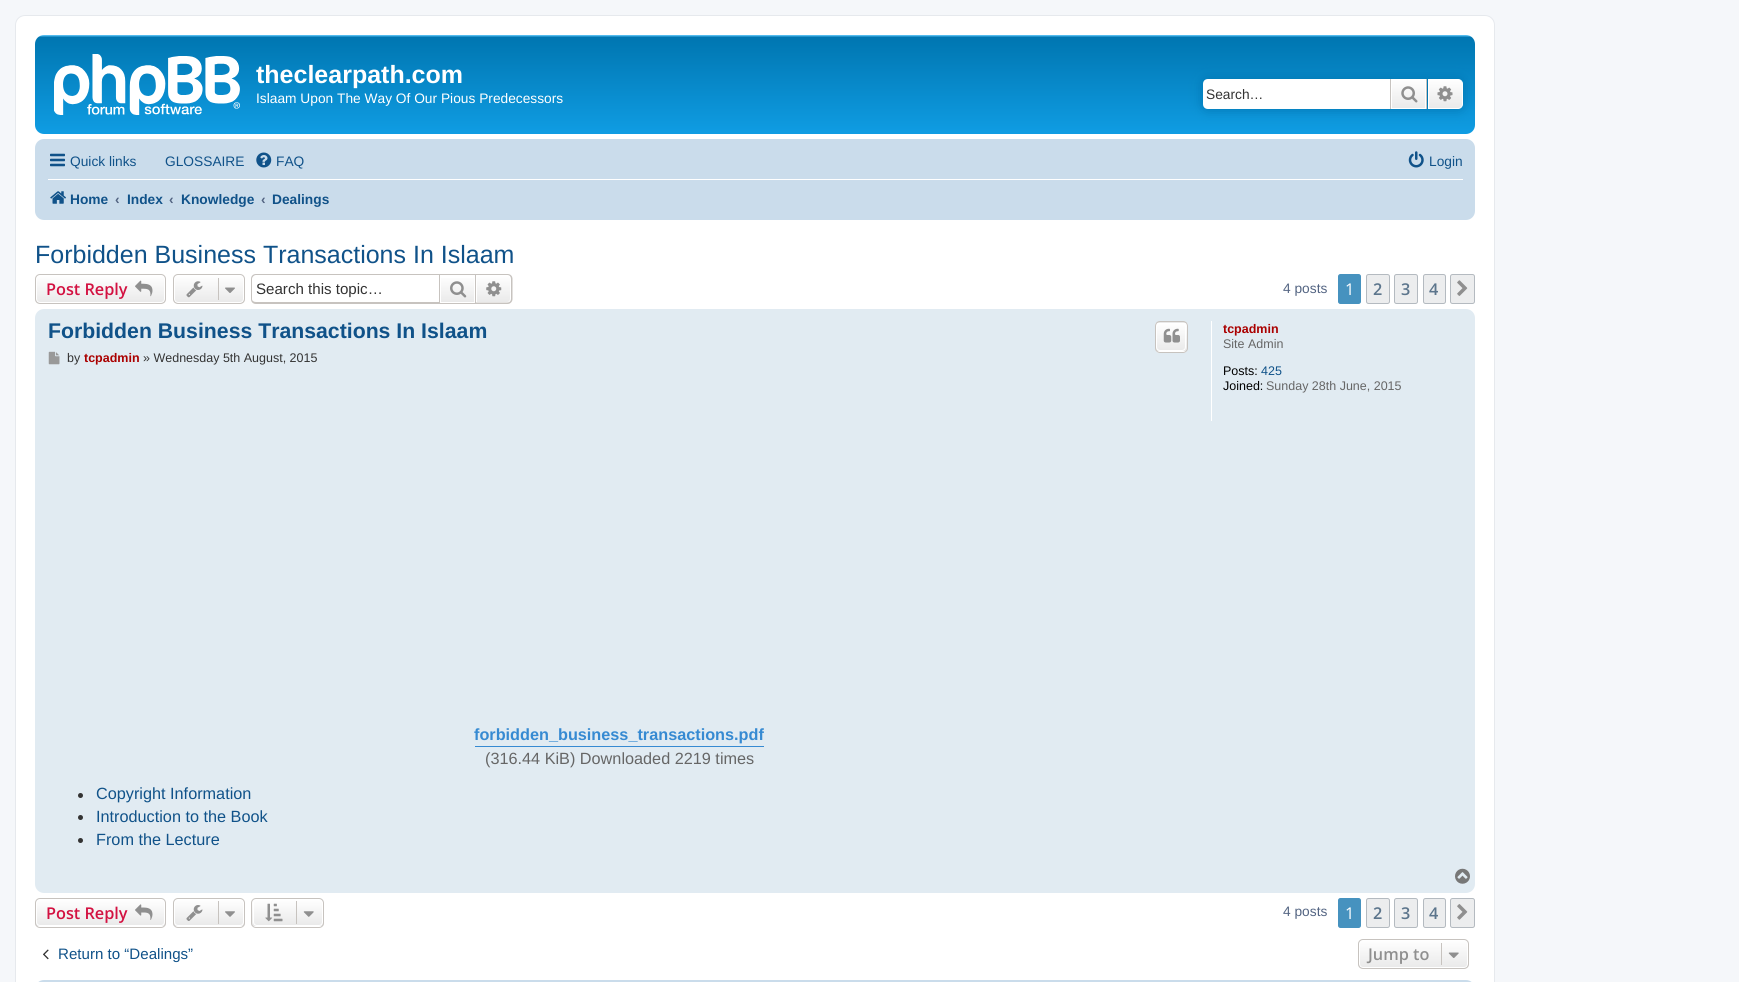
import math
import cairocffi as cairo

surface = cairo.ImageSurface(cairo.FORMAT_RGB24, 1739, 982)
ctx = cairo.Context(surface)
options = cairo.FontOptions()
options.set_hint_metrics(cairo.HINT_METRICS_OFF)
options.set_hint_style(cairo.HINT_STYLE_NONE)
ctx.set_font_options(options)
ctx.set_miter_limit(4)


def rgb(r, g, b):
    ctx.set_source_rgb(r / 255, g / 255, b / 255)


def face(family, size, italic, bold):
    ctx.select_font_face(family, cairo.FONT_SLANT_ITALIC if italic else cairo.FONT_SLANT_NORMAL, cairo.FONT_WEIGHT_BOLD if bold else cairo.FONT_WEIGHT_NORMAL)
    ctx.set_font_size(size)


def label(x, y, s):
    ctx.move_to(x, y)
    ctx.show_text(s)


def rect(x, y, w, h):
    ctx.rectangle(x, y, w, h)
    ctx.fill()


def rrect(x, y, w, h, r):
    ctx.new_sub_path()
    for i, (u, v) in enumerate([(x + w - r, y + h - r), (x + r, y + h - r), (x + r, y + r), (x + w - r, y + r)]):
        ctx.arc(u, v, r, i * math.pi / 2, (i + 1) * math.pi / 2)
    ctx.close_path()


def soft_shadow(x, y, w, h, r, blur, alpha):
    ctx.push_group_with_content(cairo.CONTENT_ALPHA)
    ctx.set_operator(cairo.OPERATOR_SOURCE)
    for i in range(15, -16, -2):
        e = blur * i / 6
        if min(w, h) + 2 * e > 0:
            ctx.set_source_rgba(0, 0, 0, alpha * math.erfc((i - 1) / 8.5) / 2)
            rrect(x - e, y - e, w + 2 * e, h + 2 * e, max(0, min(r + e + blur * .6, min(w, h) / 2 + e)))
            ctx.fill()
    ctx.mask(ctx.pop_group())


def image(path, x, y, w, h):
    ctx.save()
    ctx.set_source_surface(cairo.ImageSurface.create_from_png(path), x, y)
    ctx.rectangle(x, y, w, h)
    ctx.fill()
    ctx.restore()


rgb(245, 247, 250)
ctx.paint()
rgb(255, 255, 255)
rrect(15.5, 15.5, 1479, 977, 9.5)
ctx.fill_preserve()
rgb(230, 233, 237)
ctx.set_line_width(1)
ctx.stroke()
gradient = cairo.LinearGradient(755, 35, 755, 150)
gradient.add_color_stop_rgba(0, 0.416, 0.808, 1, 1)
gradient.add_color_stop_rgba(0.02, 0, 0.463, 0.694, 1)
gradient.add_color_stop_rgba(1, 0.071, 0.639, 0.922, 1)
ctx.set_source(gradient)
rrect(35, 35, 1440, 99, 9)
ctx.fill()
image('image0.png', 54, 54, 186, 61)
face('Liberation Sans', 25, 0, 1)
rgb(255, 255, 255)
label(256, 83, 'theclearpath.com')
face('Liberation Sans', 13.75, 0, 0)
label(256, 103, 'Islaam Upon The Way Of Our Pious Predecessors')
rgb(0, 117, 176)
soft_shadow(1203, 79, 260, 30, 5, 6, 1)
rgb(255, 255, 255)
ctx.new_path()
ctx.move_to(1208, 79)
ctx.line_to(1390, 79)
ctx.line_to(1390, 109)
ctx.line_to(1208, 109)
ctx.curve_to(1205, 109, 1203, 107, 1203, 104)
ctx.line_to(1203, 84)
ctx.curve_to(1203, 81, 1205, 79, 1208, 79)
ctx.close_path()
ctx.fill()
rgb(51, 51, 51)
label(1206, 99, 'Search…')
gradient = cairo.LinearGradient(1409, 79, 1409, 109)
gradient.add_color_stop_rgba(0, 1, 1, 1, 1)
gradient.add_color_stop_rgba(1, 0.914, 0.914, 0.914, 1)
ctx.set_source(gradient)
rect(1392, 80, 33, 28)
ctx.rectangle(1391.5, 79.5, 34, 29)
rgb(255, 255, 255)
ctx.stroke()
rgb(199, 195, 191)
rect(1426, 79, 1, 30)
rect(1390, 79, 1, 30)
image('image1.png', 1401, 86, 17, 17)
gradient = cairo.LinearGradient(1445, 79, 1445, 109)
gradient.add_color_stop_rgba(0, 1, 1, 1, 1)
gradient.add_color_stop_rgba(1, 0.914, 0.914, 0.914, 1)
ctx.set_source(gradient)
ctx.new_path()
ctx.move_to(1428.5, 79.5)
ctx.line_to(1458, 79.5)
ctx.curve_to(1460.5, 79.5, 1462.5, 81.5, 1462.5, 84)
ctx.line_to(1462.5, 104)
ctx.curve_to(1462.5, 106.5, 1460.5, 108.5, 1458, 108.5)
ctx.line_to(1428.5, 108.5)
ctx.close_path()
ctx.fill_preserve()
rgb(255, 255, 255)
ctx.stroke()
image('image2.png', 1437, 86, 16, 16)
rgb(202, 220, 235)
rrect(35, 139, 1440, 81, 9)
ctx.fill()
image('image3.png', 50, 153, 15, 14)
rgb(16, 82, 137)
label(70, 166, 'Quick links')
label(165, 166, 'GLOSSAIRE')
image('image4.png', 256, 152, 16, 16)
label(276, 166, 'FAQ')
image('image5.png', 1408, 151, 16, 17)
label(1429, 166, 'Login')
rgb(255, 255, 255)
rect(48, 179, 1415, 1)
image('image6.png', 50, 191, 16, 13)
face('Liberation Sans', 13.75, 0, 1)
rgb(16, 82, 137)
label(70, 204, 'Home')
rgb(83, 100, 130)
label(115, 204, '‹')
rgb(16, 82, 137)
label(127, 204, 'Index')
rgb(83, 100, 130)
label(169, 204, '‹')
rgb(16, 82, 137)
label(181, 204, 'Knowledge')
rgb(83, 100, 130)
label(261, 204, '‹')
rgb(16, 82, 137)
label(272, 204, 'Dealings')
face('Liberation Sans', 25, 0, 0)
label(35, 263, 'Forbidden Business Transactions In Islaam')
ctx.save()
rrect(35, 274, 131, 30, 5)
ctx.clip()
gradient = cairo.LinearGradient(101, 275, 101, 303)
gradient.add_color_stop_rgba(0, 1, 1, 1, 1)
gradient.add_color_stop_rgba(1, 0.914, 0.914, 0.914, 1)
ctx.set_source(gradient)
rect(35, 275, 131, 28)
ctx.restore()
rrect(36.5, 275.5, 128, 27, 3.5)
rgb(255, 255, 255)
ctx.stroke()
rrect(35.5, 274.5, 130, 29, 4.5)
rgb(199, 195, 191)
ctx.stroke()
face('Open Sans SemiBold', 16.25, 0, 0)
rgb(211, 17, 65)
label(46, 295, 'Post Reply')
image('image7.png', 135, 280, 18, 17)
ctx.save()
rrect(173, 274, 72, 30, 5)
ctx.clip()
gradient = cairo.LinearGradient(209, 275, 209, 303)
gradient.add_color_stop_rgba(0, 1, 1, 1, 1)
gradient.add_color_stop_rgba(1, 0.914, 0.914, 0.914, 1)
ctx.set_source(gradient)
rect(173, 275, 72, 28)
ctx.restore()
rrect(174.5, 275.5, 69, 27, 3.5)
rgb(255, 255, 255)
ctx.stroke()
rrect(173.5, 274.5, 71, 29, 4.5)
rgb(199, 195, 191)
ctx.stroke()
image('image8.png', 186, 281, 17, 17)
rect(218, 278, 1, 22)
image('image9.png', 225, 287, 10, 6)
ctx.set_fill_rule(cairo.FILL_RULE_EVEN_ODD)
ctx.new_path()
ctx.move_to(256, 274)
ctx.line_to(439, 274)
ctx.line_to(439, 304)
ctx.line_to(256, 304)
ctx.curve_to(253, 304, 251, 302, 251, 299)
ctx.line_to(251, 279)
ctx.curve_to(251, 276, 253, 274, 256, 274)
ctx.close_path()
ctx.move_to(256, 275)
ctx.line_to(439, 275)
ctx.line_to(439, 302)
ctx.line_to(256, 302)
ctx.curve_to(254, 302, 252, 301, 252, 299)
ctx.line_to(252, 279)
ctx.curve_to(252, 277, 254, 275, 256, 275)
ctx.close_path()
ctx.fill()
face('Liberation Sans', 15.1, 0, 0)
rgb(51, 51, 51)
label(256, 294, 'Search this topic…')
gradient = cairo.LinearGradient(458, 275, 458, 303)
gradient.add_color_stop_rgba(0, 1, 1, 1, 1)
gradient.add_color_stop_rgba(1, 0.914, 0.914, 0.914, 1)
ctx.set_source(gradient)
rect(441, 278, 33, 24)
ctx.rectangle(439.5, 274.5, 36, 29)
rgb(199, 195, 191)
ctx.stroke()
image('image10.png', 450, 281, 17, 17)
gradient = cairo.LinearGradient(494, 275, 494, 303)
gradient.add_color_stop_rgba(0, 1, 1, 1, 1)
gradient.add_color_stop_rgba(1, 0.914, 0.914, 0.914, 1)
ctx.set_source(gradient)
ctx.new_path()
ctx.move_to(476.5, 275.5)
ctx.line_to(507, 275.5)
ctx.curve_to(509, 275.5, 510.5, 277, 510.5, 279)
ctx.line_to(510.5, 299)
ctx.curve_to(510.5, 301, 509, 302.5, 507, 302.5)
ctx.line_to(476.5, 302.5)
ctx.close_path()
ctx.fill_preserve()
rgb(255, 255, 255)
ctx.stroke()
rgb(199, 195, 191)
ctx.new_path()
ctx.move_to(476, 274)
ctx.line_to(507.5, 274)
ctx.curve_to(510.5, 274, 512.5, 276, 512.5, 279)
ctx.line_to(512.5, 299)
ctx.curve_to(512.5, 301.5, 510.5, 304, 507.5, 304)
ctx.line_to(476, 304)
ctx.close_path()
ctx.move_to(476, 275)
ctx.line_to(507.5, 275)
ctx.curve_to(509.5, 275, 511, 276.5, 511, 279)
ctx.line_to(511, 299)
ctx.curve_to(511, 301, 509.5, 302.5, 507.5, 302.5)
ctx.line_to(476, 302.5)
ctx.close_path()
ctx.fill()
image('image11.png', 486, 281, 16, 16)
face('Liberation Sans', 13.75, 0, 0)
rgb(83, 100, 130)
label(1283, 293, '4 posts')
rgb(70, 146, 191)
rrect(1338.5, 274.5, 22, 29, 2)
ctx.fill_preserve()
ctx.stroke()
face('Open Sans', 16.25, 0, 0)
rgb(255, 255, 255)
label(1345, 295, '1')
rgb(236, 237, 238)
rrect(1366.5, 274.5, 23, 29, 2)
ctx.fill_preserve()
rgb(180, 186, 192)
ctx.stroke()
face('Open Sans SemiBold', 16.25, 0, 0)
rgb(92, 117, 140)
label(1373, 295, '2')
rgb(236, 237, 238)
rrect(1394.5, 274.5, 23, 29, 2)
ctx.fill_preserve()
rgb(180, 186, 192)
ctx.stroke()
rgb(92, 117, 140)
label(1401, 295, '3')
rgb(236, 237, 238)
rrect(1423.5, 274.5, 22, 29, 2)
ctx.fill_preserve()
rgb(180, 186, 192)
ctx.stroke()
rgb(92, 117, 140)
label(1429, 295, '4')
rgb(236, 237, 238)
rrect(1450.5, 274.5, 24, 29, 2)
ctx.fill_preserve()
rgb(180, 186, 192)
ctx.stroke()
image('image12.png', 1457, 280, 11, 16)
rgb(225, 235, 242)
rrect(35, 309, 1440, 584, 9)
ctx.fill()
face('Liberation Sans', 21.25, 0, 1)
rgb(16, 82, 137)
label(48, 338, 'Forbidden Business Transactions In Islaam')
ctx.save()
ctx.set_fill_rule(cairo.FILL_RULE_WINDING)
rrect(1155, 321, 33, 32, 5)
ctx.clip()
gradient = cairo.LinearGradient(1171, 294, 1171, 323)
gradient.add_color_stop_rgba(0, 1, 1, 1, 1)
gradient.add_color_stop_rgba(1, 0.914, 0.914, 0.914, 1)
ctx.set_source(gradient)
rect(1155, 321, 33, 2)
gradient = cairo.LinearGradient(1171, 323, 1171, 351)
gradient.add_color_stop_rgba(0, 1, 1, 1, 1)
gradient.add_color_stop_rgba(1, 0.914, 0.914, 0.914, 1)
ctx.set_source(gradient)
rect(1155, 323, 33, 28)
gradient = cairo.LinearGradient(1171, 351, 1171, 380)
gradient.add_color_stop_rgba(0, 1, 1, 1, 1)
gradient.add_color_stop_rgba(1, 0.914, 0.914, 0.914, 1)
ctx.set_source(gradient)
rect(1155, 351, 33, 2)
ctx.restore()
rrect(1156.5, 323.5, 29, 27, 3.5)
rgb(255, 255, 255)
ctx.stroke()
rrect(1155.5, 321.5, 32, 31, 4.5)
rgb(199, 195, 191)
ctx.stroke()
image('image13.png', 1163, 328, 17, 15)
image('image14.png', 48, 351, 12, 14)
face('Liberation Sans', 12.5, 0, 0)
rgb(51, 51, 51)
label(67, 362, 'by')
face('Liberation Sans', 12.5, 0, 1)
rgb(170, 0, 0)
label(84, 362, 'tcpadmin')
face('Liberation Sans', 12.5, 0, 0)
rgb(51, 51, 51)
label(143, 362, '» Wednesday 5th August, 2015')
rgb(54, 138, 210)
rect(475, 746, 289, 1)
face('Liberation Sans', 16.25, 0, 1)
label(474, 740, 'forbidden_business_transactions.pdf')
face('Liberation Sans', 16.25, 0, 0)
rgb(102, 102, 102)
label(485, 764, '(316.44 KiB) Downloaded 2219 times')
rgb(51, 51, 51)
ctx.new_path()
ctx.arc(80.5, 795.5, 2.5, 0, 2 * math.pi)
ctx.fill()
rgb(16, 82, 137)
label(96, 799, 'Copyright Information')
rgb(51, 51, 51)
ctx.new_path()
ctx.arc(80.5, 817.5, 2.5, 0, 2 * math.pi)
ctx.fill()
rgb(16, 82, 137)
label(96, 822, 'Introduction to the Book')
rgb(51, 51, 51)
ctx.new_path()
ctx.arc(80.5, 840.5, 2.5, 0, 2 * math.pi)
ctx.fill()
rgb(16, 82, 137)
label(96, 845, 'From the Lecture')
rgb(255, 255, 255)
rect(1211, 321, 1, 100)
face('Liberation Sans', 12.5, 0, 1)
rgb(170, 0, 0)
label(1223, 333, 'tcpadmin')
face('Liberation Sans', 12.5, 0, 0)
rgb(102, 102, 102)
label(1223, 348, 'Site Admin')
rgb(0, 0, 0)
label(1223, 375, 'Posts:')
rgb(16, 82, 137)
label(1261, 375, '425')
rgb(0, 0, 0)
label(1223, 390, 'Joined:')
rgb(102, 102, 102)
label(1266, 390, 'Sunday 28th June, 2015')
image('image15.png', 1455, 868, 15, 16)
ctx.save()
ctx.set_fill_rule(cairo.FILL_RULE_WINDING)
rrect(35, 898, 131, 30, 5)
ctx.clip()
gradient = cairo.LinearGradient(101, 899, 101, 926)
gradient.add_color_stop_rgba(0, 1, 1, 1, 1)
gradient.add_color_stop_rgba(1, 0.914, 0.914, 0.914, 1)
ctx.set_source(gradient)
rect(35, 899, 131, 27)
ctx.restore()
rrect(36.5, 899.5, 128, 26, 3.5)
rgb(255, 255, 255)
ctx.stroke()
rrect(35.5, 898.5, 130, 29, 4.5)
rgb(199, 195, 191)
ctx.stroke()
face('Open Sans SemiBold', 16.25, 0, 0)
rgb(211, 17, 65)
label(46, 919, 'Post Reply')
image('image16.png', 135, 904, 18, 16)
ctx.save()
ctx.set_fill_rule(cairo.FILL_RULE_WINDING)
rrect(173, 898, 72, 30, 5)
ctx.clip()
gradient = cairo.LinearGradient(209, 899, 209, 926)
gradient.add_color_stop_rgba(0, 1, 1, 1, 1)
gradient.add_color_stop_rgba(1, 0.914, 0.914, 0.914, 1)
ctx.set_source(gradient)
rect(173, 899, 72, 27)
ctx.restore()
rrect(174.5, 899.5, 69, 26, 3.5)
rgb(255, 255, 255)
ctx.stroke()
rrect(173.5, 898.5, 71, 29, 4.5)
rgb(199, 195, 191)
ctx.stroke()
image('image17.png', 186, 905, 17, 16)
rect(218, 901, 1, 23)
image('image18.png', 225, 911, 10, 6)
ctx.save()
ctx.set_fill_rule(cairo.FILL_RULE_WINDING)
rrect(251, 898, 73, 30, 5)
ctx.clip()
gradient = cairo.LinearGradient(288, 899, 288, 926)
gradient.add_color_stop_rgba(0, 1, 1, 1, 1)
gradient.add_color_stop_rgba(1, 0.914, 0.914, 0.914, 1)
ctx.set_source(gradient)
rect(251, 899, 73, 27)
ctx.restore()
rrect(253.5, 899.5, 69, 26, 3.5)
rgb(255, 255, 255)
ctx.stroke()
rrect(251.5, 898.5, 72, 29, 4.5)
rgb(199, 195, 191)
ctx.stroke()
image('image19.png', 265, 903, 18, 19)
rect(296, 901, 1, 23)
image('image20.png', 303, 911, 11, 6)
face('Liberation Sans', 13.75, 0, 0)
rgb(83, 100, 130)
label(1283, 916, '4 posts')
rgb(70, 146, 191)
rrect(1338.5, 898.5, 22, 29, 2)
ctx.fill_preserve()
ctx.stroke()
face('Open Sans', 16.25, 0, 0)
rgb(255, 255, 255)
label(1345, 919, '1')
rgb(236, 237, 238)
rrect(1366.5, 898.5, 23, 29, 2)
ctx.fill_preserve()
rgb(180, 186, 192)
ctx.stroke()
face('Open Sans SemiBold', 16.25, 0, 0)
rgb(92, 117, 140)
label(1373, 919, '2')
rgb(236, 237, 238)
rrect(1394.5, 898.5, 23, 29, 2)
ctx.fill_preserve()
rgb(180, 186, 192)
ctx.stroke()
rgb(92, 117, 140)
label(1401, 919, '3')
rgb(236, 237, 238)
rrect(1423.5, 898.5, 22, 29, 2)
ctx.fill_preserve()
rgb(180, 186, 192)
ctx.stroke()
rgb(92, 117, 140)
label(1429, 919, '4')
rgb(236, 237, 238)
rrect(1450.5, 898.5, 24, 29, 2)
ctx.fill_preserve()
rgb(180, 186, 192)
ctx.stroke()
image('image21.png', 1457, 904, 11, 16)
image('image22.png', 43, 949, 6, 11)
face('Liberation Sans', 15.1, 0, 0)
rgb(16, 82, 137)
label(58, 959, 'Return to “Dealings”')
ctx.save()
ctx.set_fill_rule(cairo.FILL_RULE_WINDING)
rrect(1358, 939, 111, 30, 5)
ctx.clip()
gradient = cairo.LinearGradient(1413, 940, 1413, 968)
gradient.add_color_stop_rgba(0, 1, 1, 1, 1)
gradient.add_color_stop_rgba(1, 0.914, 0.914, 0.914, 1)
ctx.set_source(gradient)
rect(1358, 940, 111, 28)
ctx.restore()
rrect(1359.5, 940.5, 108, 27, 3.5)
rgb(255, 255, 255)
ctx.stroke()
rrect(1358.5, 939.5, 110, 29, 4.5)
rgb(199, 195, 191)
ctx.stroke()
face('Open Sans SemiBold', 16.25, 0, 0)
rgb(143, 143, 143)
label(1368, 960, 'Jump to')
rgb(199, 195, 191)
rect(1441, 943, 1, 22)
image('image23.png', 1448, 952, 11, 6)
rgb(202, 220, 235)
rrect(35, 980, 1440, 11, 9)
ctx.fill()
surface.write_to_png('render.png')
